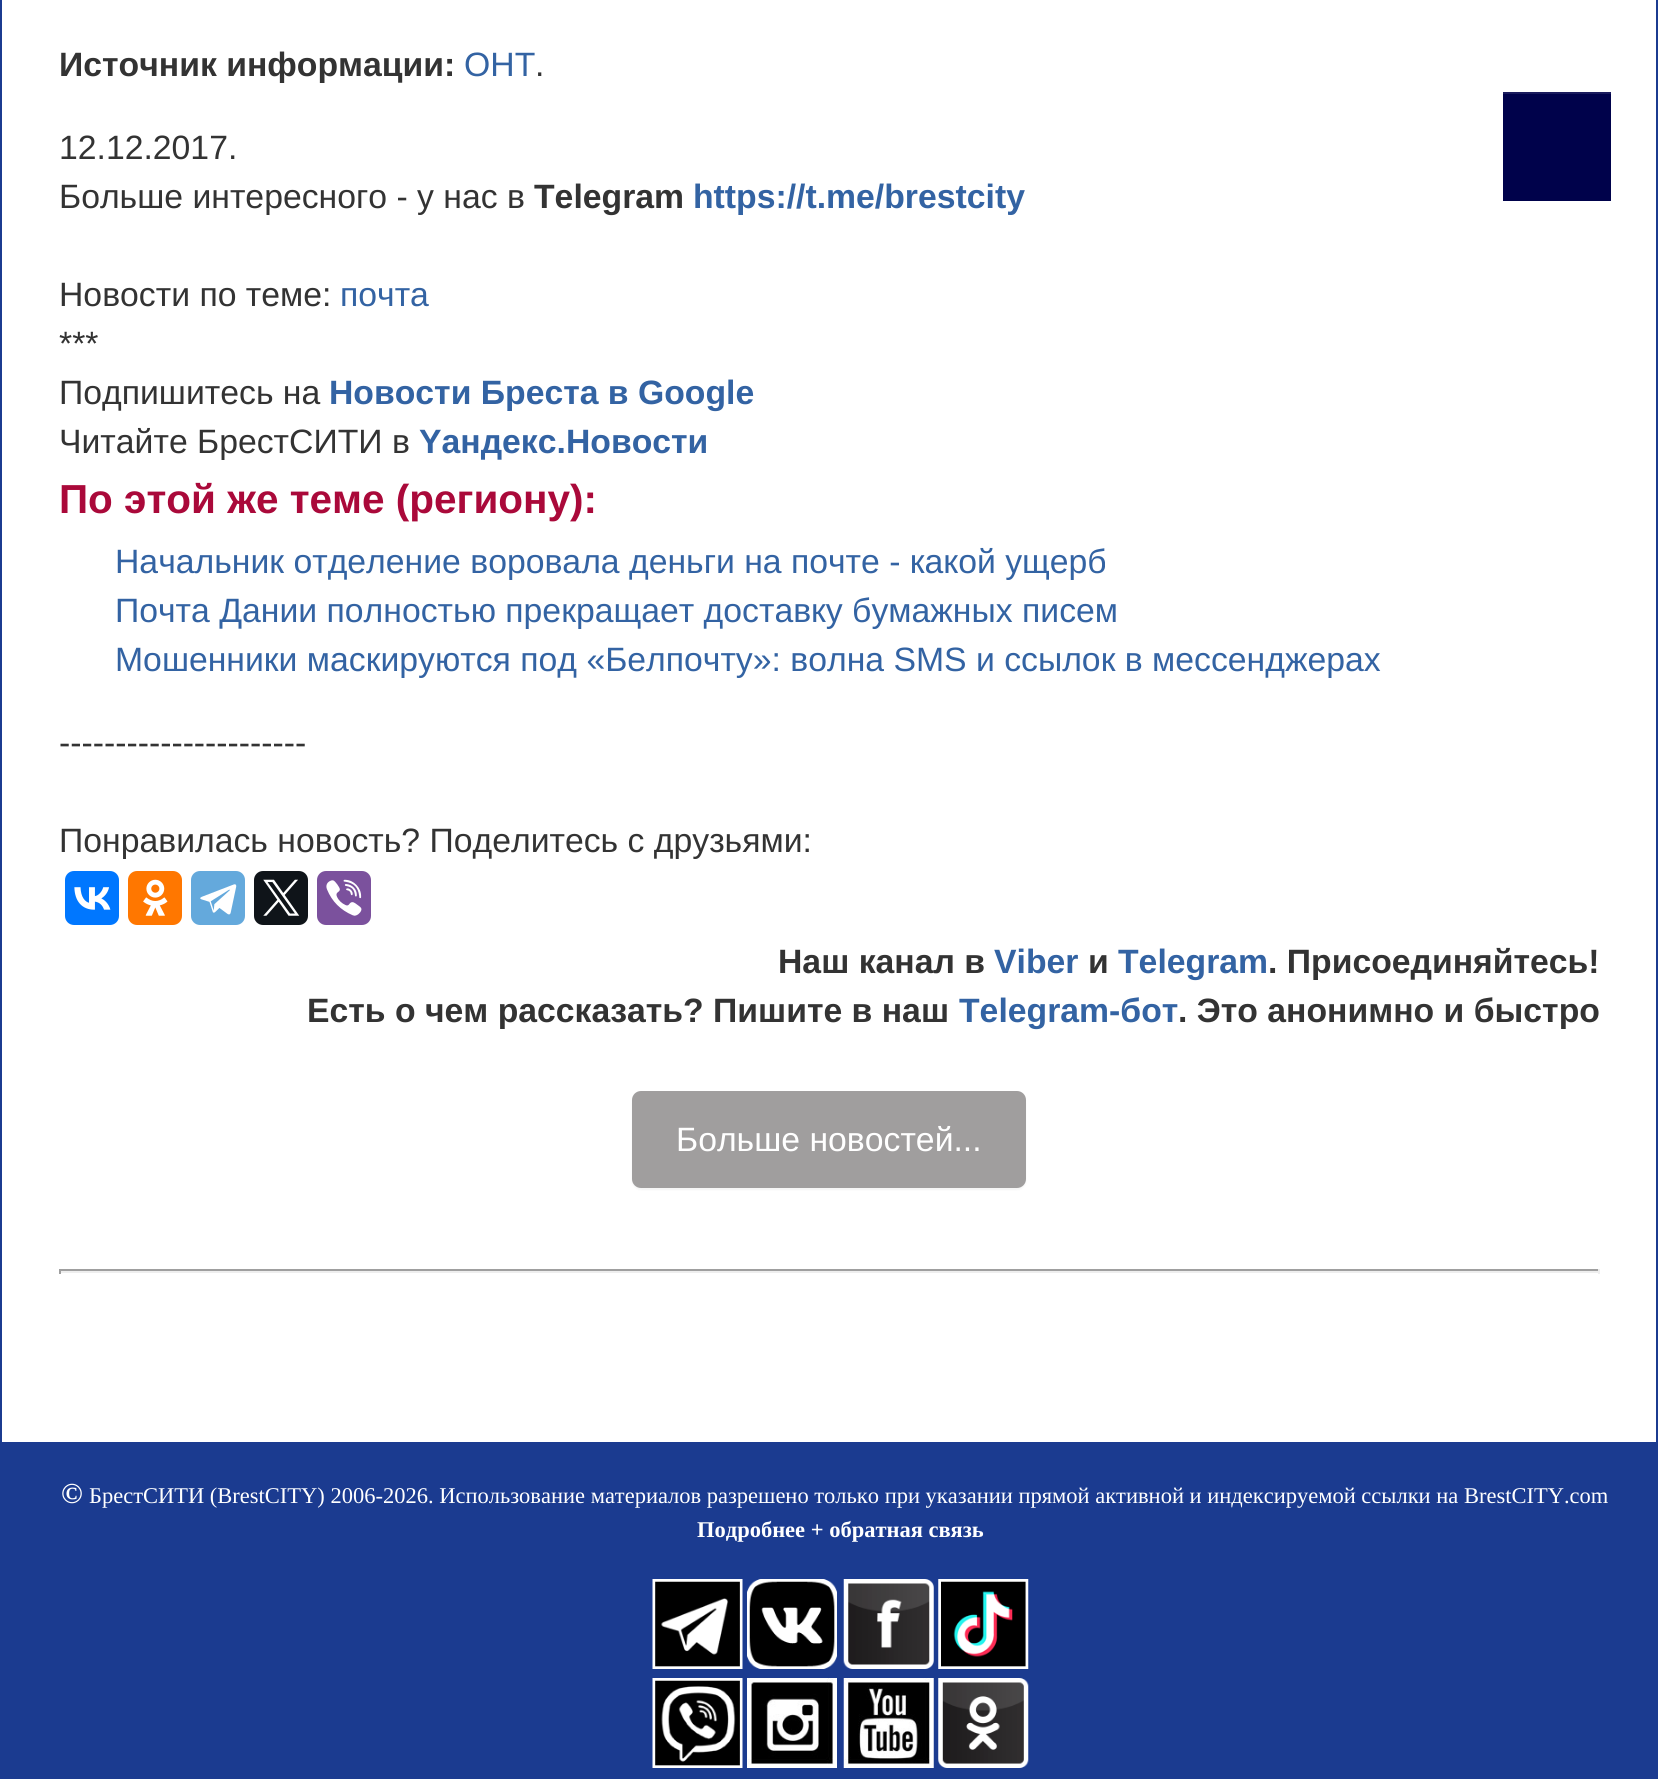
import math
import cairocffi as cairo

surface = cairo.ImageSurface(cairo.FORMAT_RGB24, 1658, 1779)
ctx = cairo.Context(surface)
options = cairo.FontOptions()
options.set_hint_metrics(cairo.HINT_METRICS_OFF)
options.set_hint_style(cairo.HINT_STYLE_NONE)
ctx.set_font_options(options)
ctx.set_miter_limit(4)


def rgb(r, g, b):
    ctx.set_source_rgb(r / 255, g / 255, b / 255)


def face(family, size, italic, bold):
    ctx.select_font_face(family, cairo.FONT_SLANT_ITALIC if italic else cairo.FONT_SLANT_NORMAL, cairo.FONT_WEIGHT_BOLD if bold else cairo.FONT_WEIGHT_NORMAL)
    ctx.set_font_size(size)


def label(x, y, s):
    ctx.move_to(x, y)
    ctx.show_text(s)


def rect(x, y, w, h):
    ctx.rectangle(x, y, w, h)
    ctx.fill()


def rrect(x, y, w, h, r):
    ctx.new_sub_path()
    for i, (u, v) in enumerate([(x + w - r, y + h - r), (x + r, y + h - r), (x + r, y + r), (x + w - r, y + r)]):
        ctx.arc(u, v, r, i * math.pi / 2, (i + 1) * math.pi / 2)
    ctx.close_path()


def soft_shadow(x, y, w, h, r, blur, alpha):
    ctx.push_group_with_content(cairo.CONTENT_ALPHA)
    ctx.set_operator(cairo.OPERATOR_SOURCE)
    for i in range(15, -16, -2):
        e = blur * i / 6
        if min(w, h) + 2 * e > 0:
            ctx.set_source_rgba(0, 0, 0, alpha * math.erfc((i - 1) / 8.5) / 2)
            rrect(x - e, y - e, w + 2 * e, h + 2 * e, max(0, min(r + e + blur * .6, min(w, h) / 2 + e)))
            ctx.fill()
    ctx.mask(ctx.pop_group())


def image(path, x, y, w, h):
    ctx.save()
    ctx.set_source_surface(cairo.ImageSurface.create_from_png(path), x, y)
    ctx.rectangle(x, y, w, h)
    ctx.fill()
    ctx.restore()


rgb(27, 59, 144)
ctx.paint()
rgb(255, 255, 255)
rect(2, 0, 1654, 1442)
face('Liberation Sans', 33.75, 0, 1)
rgb(51, 51, 51)
label(59, 76, 'Источник информации:')
face('Liberation Sans', 33.75, 0, 0)
rgb(51, 99, 163)
label(464, 76, 'ОНТ')
rgb(51, 51, 51)
label(535, 76, '.')
label(59, 159, '12.12.2017.')
label(59, 208, 'Больше интересного - у нас в')
face('Liberation Sans', 33.75, 0, 1)
label(534, 208, 'Telegram')
rgb(51, 99, 163)
label(693, 208, 'https://t.me/brestcity')
face('Liberation Sans', 33.75, 0, 0)
rgb(51, 51, 51)
label(59, 306, 'Новости по теме:')
rgb(51, 99, 163)
label(340, 306, 'почта')
rgb(51, 51, 51)
label(59, 355, '***')
label(59, 404, 'Подпишитесь на')
face('Liberation Sans', 33.75, 0, 1)
rgb(51, 99, 163)
label(329, 404, 'Новости Бреста в Google')
face('Liberation Sans', 33.75, 0, 0)
rgb(51, 51, 51)
label(59, 453, 'Читайте БрестСИТИ в')
face('Liberation Sans', 33.75, 0, 1)
rgb(51, 99, 163)
label(419, 453, 'Yaндекс.Новости')
face('Liberation Sans', 40.5, 0, 1)
rgb(170, 9, 58)
label(59, 513, 'По этой же теме (региону):')
face('Liberation Sans', 33.75, 0, 0)
rgb(51, 99, 163)
label(115, 573, 'Начальник отделение воровала деньги на почте - какой ущерб')
label(115, 622, 'Почта Дании полностью прекращает доставку бумажных писем')
label(115, 671, 'Мошенники маскируются под «Белпочту»: волна SMS и ссылок в мессенджерах')
rgb(51, 51, 51)
label(59, 754, '----------------------')
label(59, 852, 'Понравилась новость? Поделитесь с друзьями:')
rgb(0, 119, 255)
rrect(65, 871, 54, 54, 9)
ctx.fill()
image('image0.png', 74, 887, 37, 23)
rgb(255, 119, 0)
rrect(128, 871, 54, 54, 9)
ctx.fill()
image('image1.png', 143, 879, 25, 37)
rgb(100, 169, 220)
rrect(191, 871, 54, 54, 9)
ctx.fill()
image('image2.png', 200, 884, 37, 31)
rgb(15, 20, 25)
rrect(254, 871, 54, 54, 9)
ctx.fill()
image('image3.png', 263, 879, 37, 37)
rgb(123, 81, 157)
rrect(317, 871, 54, 54, 9)
ctx.fill()
image('image4.png', 326, 879, 36, 37)
face('Liberation Sans', 33.75, 0, 1)
rgb(51, 51, 51)
label(778, 973, 'Наш канал в')
rgb(51, 99, 163)
label(994, 973, 'Viber')
rgb(51, 51, 51)
label(1088, 973, 'и')
rgb(51, 99, 163)
label(1118, 973, 'Telegram')
rgb(51, 51, 51)
label(1268, 973, '. Присоединяйтесь!')
label(307, 1022, 'Есть о чем рассказать? Пишите в наш')
rgb(51, 99, 163)
label(959, 1022, 'Telegram-бот')
rgb(51, 51, 51)
label(1178, 1022, '. Это анонимно и быстро')
rgb(0, 0, 0)
soft_shadow(632, 1094, 394, 96, 9, 1, 0.04)
rgb(160, 158, 158)
rrect(632, 1091, 394, 97, 9)
ctx.fill()
face('Liberation Sans', 33.75, 0, 0)
rgb(255, 255, 255)
label(676, 1151, 'Больше новостей...')
rgb(159, 159, 159)
rect(59, 1269, 1541, 2)
rgb(238, 238, 238)
rect(1598, 1269, 2, 5)
rect(59, 1271, 1541, 2)
rgb(159, 159, 159)
rect(59, 1269, 2, 5)
face('Liberation Serif', 29, 0, 1)
rgb(255, 255, 255)
label(61, 1503, '©')
face('Liberation Serif', 22.5, 0, 0)
label(89, 1503, 'БрестСИТИ (BrestCITY) 2006-2026. Использование материалов разрешено только при указании прямой активной и индексируемой ссылки на BrestCITY.com')
face('Liberation Serif', 22.5, 0, 1)
label(697, 1537, 'Подробнее + обратная связь')
image('image5.png', 652, 1579, 91, 90)
image('image6.png', 747, 1579, 90, 90)
image('image7.png', 843, 1579, 91, 90)
image('image8.png', 938, 1579, 91, 90)
image('image9.png', 652, 1678, 91, 90)
image('image10.png', 747, 1678, 90, 90)
image('image11.png', 843, 1678, 91, 90)
image('image12.png', 938, 1678, 91, 90)
rgb(0, 2, 75)
rect(1503, 94, 108, 107)
rgb(26, 27, 93)
rect(1503, 92, 108, 2)
surface.write_to_png('render.png')
